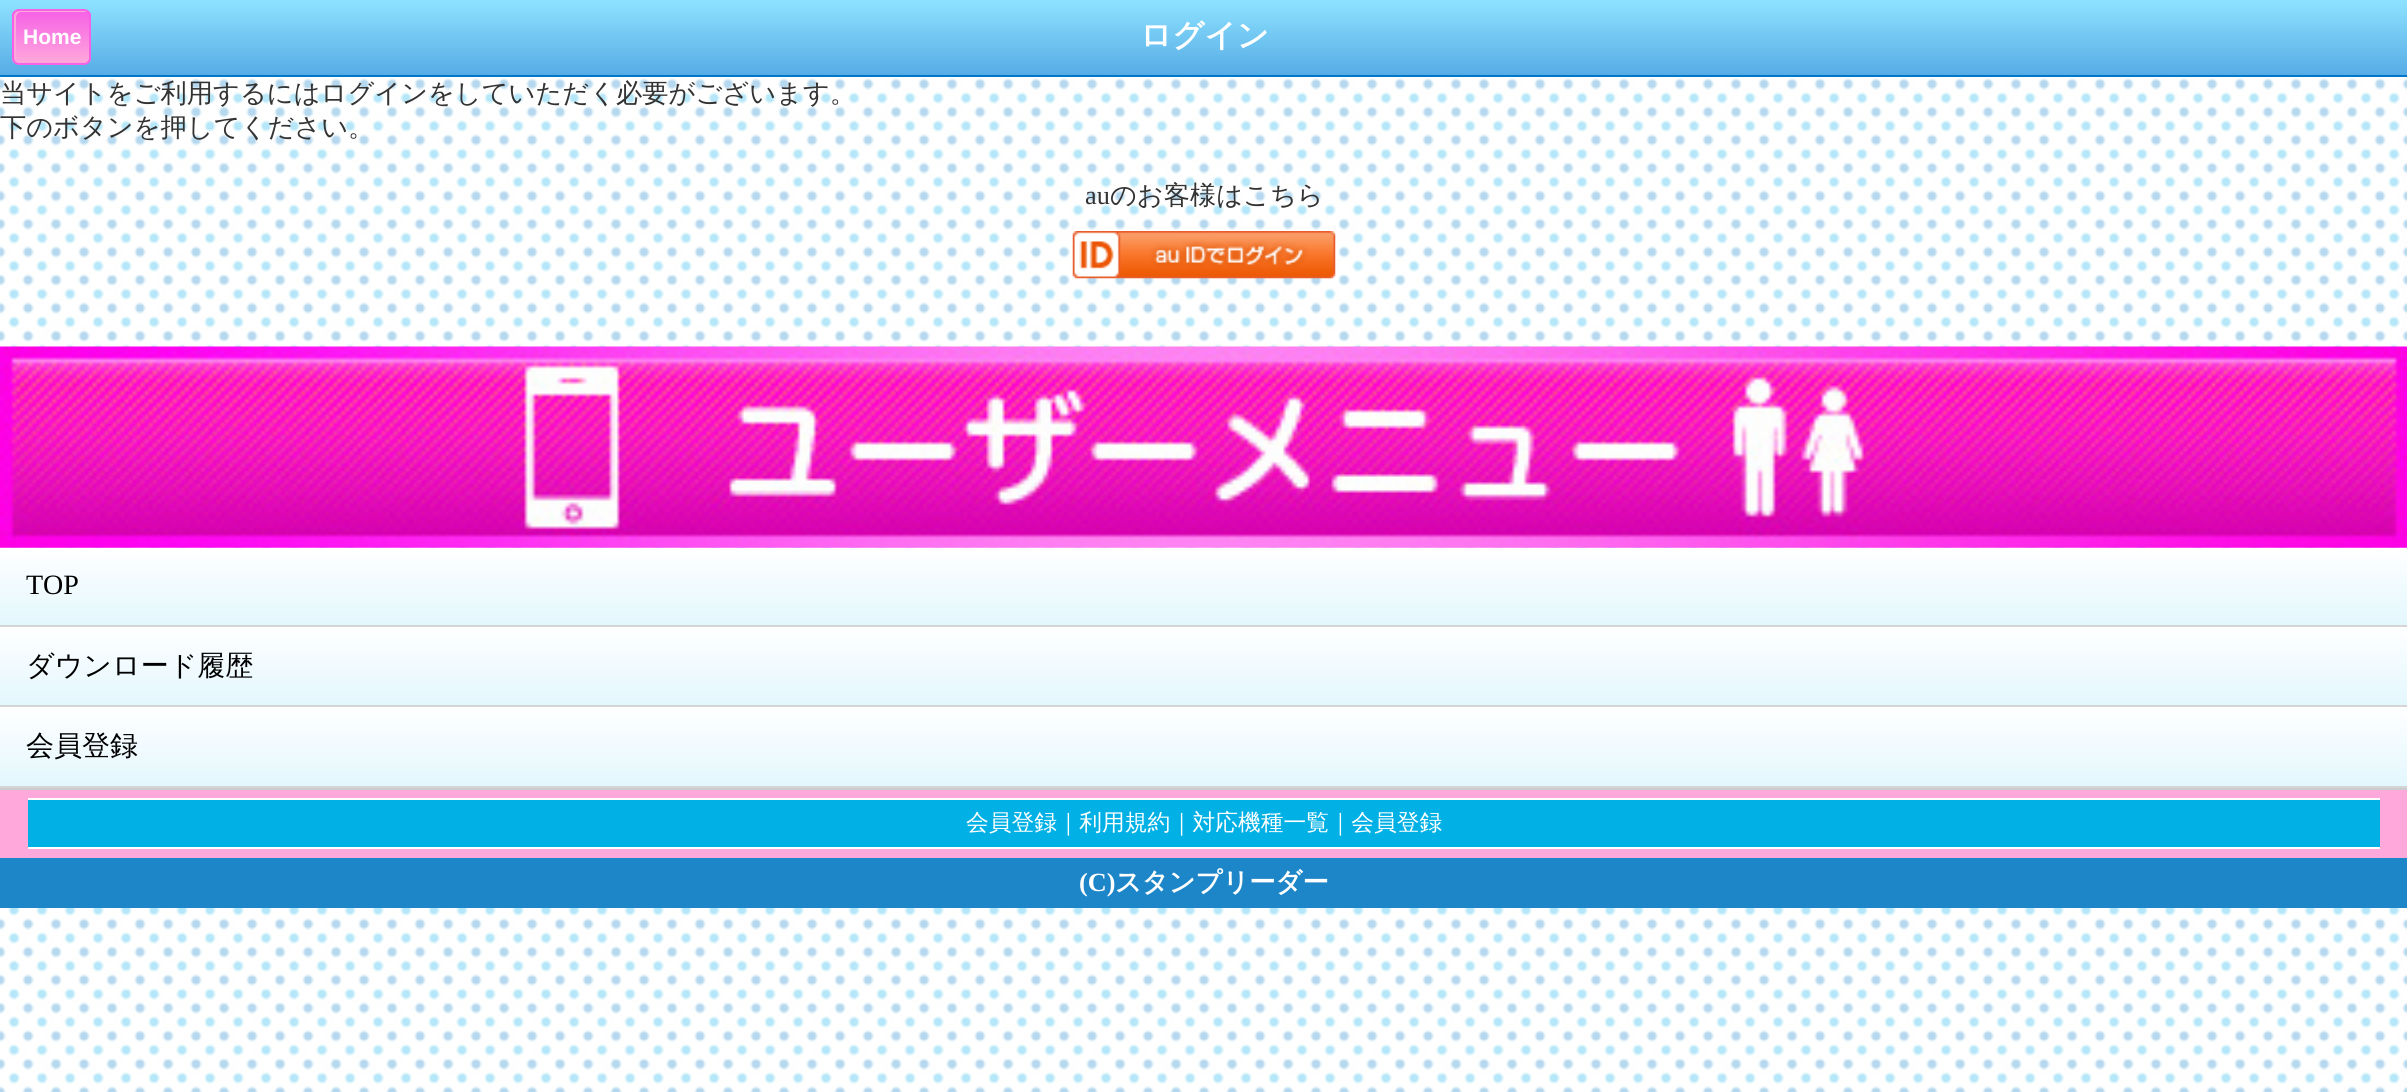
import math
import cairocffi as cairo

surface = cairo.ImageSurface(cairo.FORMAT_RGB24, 2407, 1092)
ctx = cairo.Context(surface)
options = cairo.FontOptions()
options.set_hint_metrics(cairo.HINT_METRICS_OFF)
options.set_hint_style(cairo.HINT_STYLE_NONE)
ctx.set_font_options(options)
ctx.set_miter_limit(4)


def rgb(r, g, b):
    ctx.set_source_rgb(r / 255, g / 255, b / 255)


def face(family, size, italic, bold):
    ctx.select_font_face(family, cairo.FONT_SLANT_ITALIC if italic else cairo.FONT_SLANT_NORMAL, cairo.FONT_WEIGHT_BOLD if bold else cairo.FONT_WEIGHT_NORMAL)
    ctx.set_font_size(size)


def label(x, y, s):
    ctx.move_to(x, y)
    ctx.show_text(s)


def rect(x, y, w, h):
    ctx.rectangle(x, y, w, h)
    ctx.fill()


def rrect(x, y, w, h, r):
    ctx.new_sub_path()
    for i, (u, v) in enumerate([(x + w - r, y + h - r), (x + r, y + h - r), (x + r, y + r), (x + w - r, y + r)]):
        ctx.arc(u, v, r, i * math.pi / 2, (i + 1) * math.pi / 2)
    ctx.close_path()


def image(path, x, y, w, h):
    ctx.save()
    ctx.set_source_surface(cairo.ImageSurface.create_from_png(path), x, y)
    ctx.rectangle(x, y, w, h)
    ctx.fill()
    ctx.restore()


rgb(255, 255, 255)
ctx.paint()
image('image0.png', 0, 77, 2407, 1015)
gradient = cairo.LinearGradient(0, 0, 0, 75)
gradient.add_color_stop_rgba(0, 0.557, 0.886, 1, 1)
gradient.add_color_stop_rgba(1, 0.337, 0.675, 0.898, 1)
ctx.set_source(gradient)
rect(0, 0, 2407, 75)
ctx.save()
rrect(12, 9, 79, 56, 7)
ctx.clip()
gradient = cairo.LinearGradient(14, 11, 14, 63)
gradient.add_color_stop_rgba(0, 0.965, 0.38, 0.902, 1)
gradient.add_color_stop_rgba(1, 1, 0.659, 0.859, 1)
ctx.set_source(gradient)
rect(12, 11, 79, 52)
ctx.restore()
rgb(255, 168, 219)
ctx.new_path()
ctx.move_to(21, 12)
ctx.line_to(87, 12)
ctx.curve_to(86, 11, 85, 11, 84, 11)
ctx.line_to(19, 11)
ctx.curve_to(16, 11, 14, 13, 14, 16)
ctx.line_to(14, 58)
ctx.curve_to(14, 60, 15, 62, 17, 62)
ctx.line_to(16, 60)
ctx.line_to(16, 18)
ctx.curve_to(16, 15, 18, 12, 21, 12)
ctx.close_path()
ctx.fill()
rrect(13, 10, 77, 54, 6)
rgb(246, 97, 230)
ctx.stroke()
face('Liberation Sans', 21, 0, 1)
rgb(255, 255, 255)
label(23, 44, 'Home')
rgb(0, 119, 201)
rect(0, 75, 2407, 2)
face('WenQuanYi Zen Hei', 31.5, 0, 1)
rgb(255, 255, 255)
label(1140, 46, 'ログイン')
face('WenQuanYi Zen Hei Medium', 26.25, 0, 0)
rgb(51, 51, 51)
label(0, 102, '当サイトをご利用するにはログインをしていただく必要がございます。')
label(0, 136, '下のボタンを押してください。')
face('Liberation Serif', 26.25, 0, 0)
label(1085, 204, 'au')
face('WenQuanYi Zen Hei Medium', 26.25, 0, 0)
label(1110, 204, 'のお客様はこちら')
image('image1.png', 1072, 231, 264, 48)
image('image2.png', 0, 346, 2407, 202)
gradient = cairo.LinearGradient(0, 548, 0, 625)
gradient.add_color_stop_rgba(0, 1, 1, 1, 1)
gradient.add_color_stop_rgba(1, 0.89, 0.969, 0.996, 1)
ctx.set_source(gradient)
rect(0, 548, 2407, 77)
rgb(213, 213, 213)
rect(0, 625, 2407, 2)
face('Liberation Serif', 28, 0, 0)
rgb(0, 0, 0)
label(26, 594, 'TOP')
gradient = cairo.LinearGradient(0, 627, 0, 705)
gradient.add_color_stop_rgba(0, 1, 1, 1, 1)
gradient.add_color_stop_rgba(1, 0.89, 0.969, 0.996, 1)
ctx.set_source(gradient)
rect(0, 627, 2407, 78)
rgb(213, 213, 213)
rect(0, 705, 2407, 2)
face('WenQuanYi Zen Hei Medium', 28, 0, 0)
rgb(0, 0, 0)
label(26, 675, 'ダウンロード履歴')
gradient = cairo.LinearGradient(0, 707, 0, 786)
gradient.add_color_stop_rgba(0, 1, 1, 1, 1)
gradient.add_color_stop_rgba(1, 0.89, 0.969, 0.996, 1)
ctx.set_source(gradient)
rect(0, 708, 2407, 78)
rgb(213, 213, 213)
rect(0, 786, 2407, 2)
rgb(0, 0, 0)
label(26, 755, '会員登録')
rgb(255, 168, 219)
rect(0, 790, 2407, 68)
rgb(204, 204, 204)
rect(0, 788, 2407, 2)
rgb(1, 177, 230)
rect(28, 800, 2352, 47)
rgb(255, 255, 255)
rect(28, 798, 2352, 2)
rect(28, 847, 2352, 2)
face('WenQuanYi Zen Hei Medium', 22.75, 0, 0)
label(966, 830, '会員登録｜利用規約｜対応機種一覧｜会員登録')
rgb(28, 134, 200)
rect(0, 858, 2407, 50)
face('Liberation Serif', 26.25, 0, 1)
rgb(255, 255, 255)
label(1079, 891, '(C)')
face('WenQuanYi Zen Hei', 26.25, 0, 1)
label(1115, 891, 'スタンプリーダー')
surface.write_to_png('render.png')
